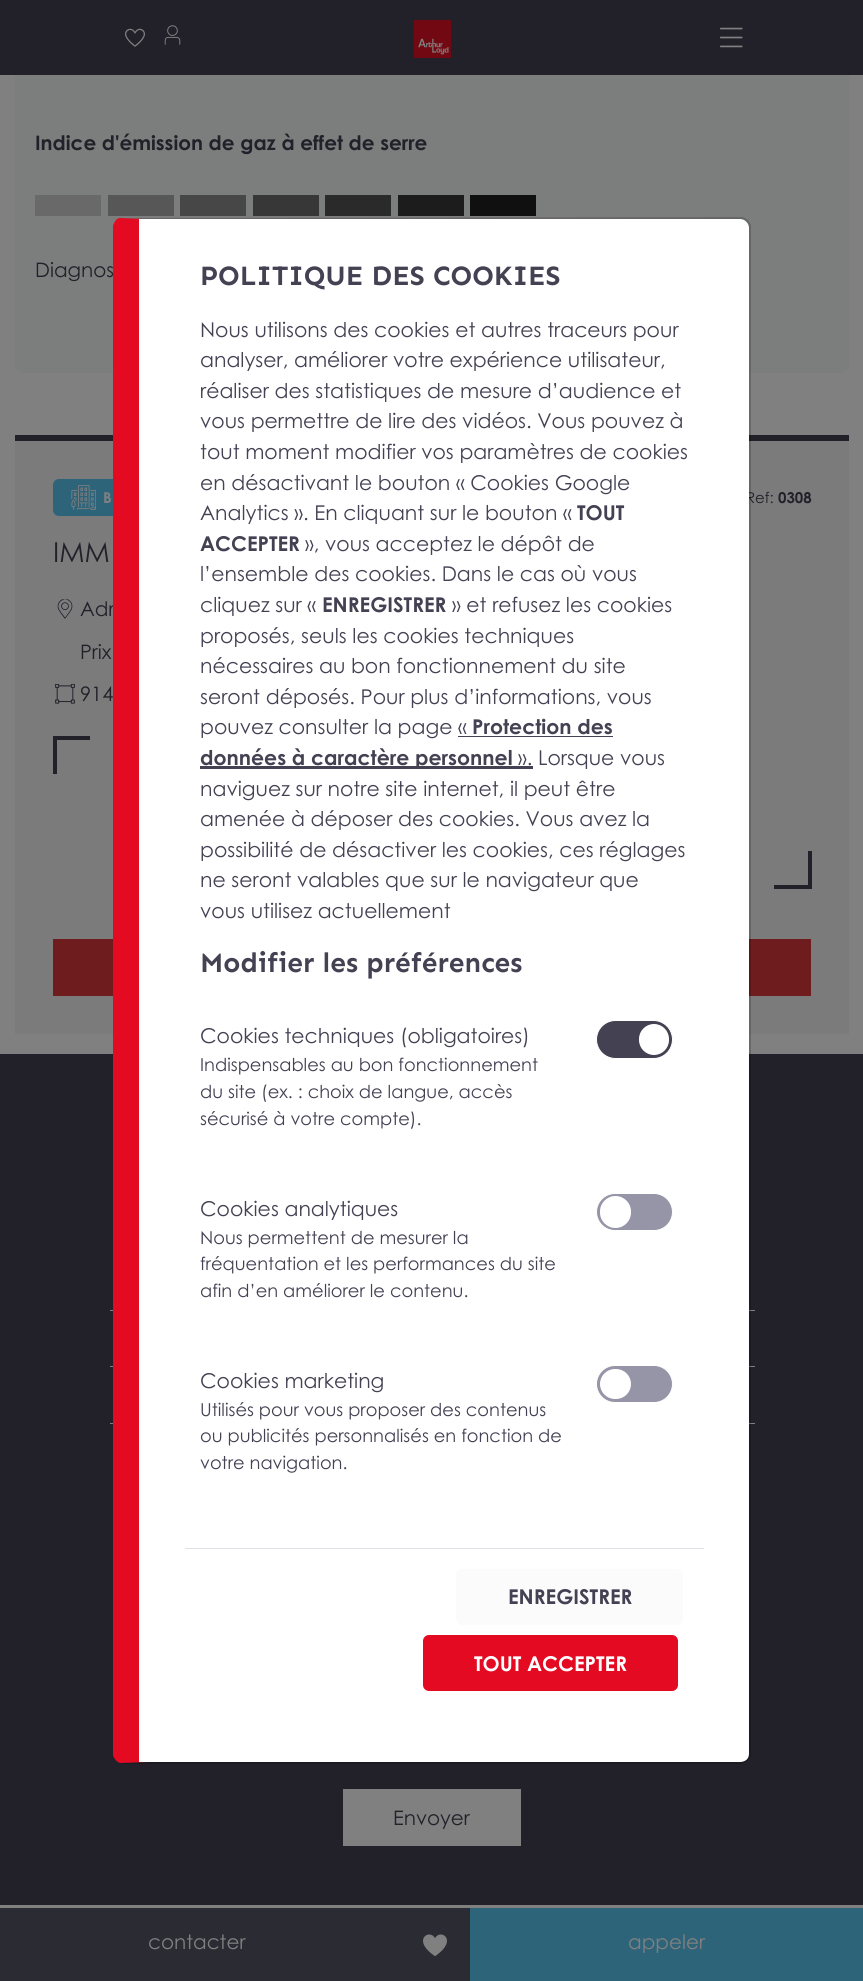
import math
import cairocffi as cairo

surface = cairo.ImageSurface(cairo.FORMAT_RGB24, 863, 1981)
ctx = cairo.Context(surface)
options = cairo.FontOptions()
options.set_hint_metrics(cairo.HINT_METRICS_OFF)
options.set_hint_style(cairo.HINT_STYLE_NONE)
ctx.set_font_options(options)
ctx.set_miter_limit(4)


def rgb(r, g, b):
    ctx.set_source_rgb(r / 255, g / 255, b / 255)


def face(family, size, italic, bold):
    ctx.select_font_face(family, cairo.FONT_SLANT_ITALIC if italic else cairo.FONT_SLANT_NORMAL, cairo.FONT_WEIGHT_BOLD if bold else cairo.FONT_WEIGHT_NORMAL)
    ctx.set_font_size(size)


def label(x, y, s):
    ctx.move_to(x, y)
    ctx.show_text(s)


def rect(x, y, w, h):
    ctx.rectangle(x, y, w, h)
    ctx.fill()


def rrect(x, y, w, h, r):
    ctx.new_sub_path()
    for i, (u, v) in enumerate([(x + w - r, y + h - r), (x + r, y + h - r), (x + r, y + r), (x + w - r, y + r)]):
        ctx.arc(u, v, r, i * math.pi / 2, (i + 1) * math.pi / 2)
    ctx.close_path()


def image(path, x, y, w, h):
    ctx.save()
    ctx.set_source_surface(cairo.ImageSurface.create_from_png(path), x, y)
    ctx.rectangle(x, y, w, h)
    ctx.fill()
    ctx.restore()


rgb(128, 128, 128)
ctx.paint()
rgb(124, 125, 125)
rrect(15, -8, 834, 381, 8)
ctx.fill()
rgb(34, 33, 42)
rect(0, 0, 863, 75)
image('image0.png', 414, 20, 37, 38)
image('image1.png', 125, 28, 20, 19)
image('image2.png', 164, 25, 17, 20)
image('image3.png', 719, 27, 24, 21)
face('Century Gothic', 20, 0, 1)
label(35, 150, 'Indice d\'émission de gaz à effet de serre')
rgb(105, 105, 105)
rect(35, 195, 66, 21)
rgb(87, 87, 87)
rect(108, 195, 66, 21)
rgb(71, 71, 71)
rect(180, 195, 66, 21)
rgb(55, 55, 55)
rect(253, 195, 66, 21)
rgb(42, 42, 42)
rect(325, 195, 66, 21)
rgb(28, 28, 28)
rect(398, 195, 66, 21)
rgb(16, 16, 16)
rect(470, 195, 66, 21)
face('Century Gothic', 20, 0, 0)
rgb(34, 33, 42)
label(35, 277, 'Diagnos')
rgb(123, 123, 123)
rect(15, 441, 834, 593)
rgb(34, 33, 42)
rect(15, 435, 834, 6)
rgb(46, 100, 122)
rrect(53, 479, 128, 37, 6)
ctx.fill()
image('image4.png', 71, 485, 25, 25)
face('Century Gothic', 15, 0, 1)
rgb(128, 128, 128)
label(103, 503, 'B')
face('Century Gothic', 15, 0, 0)
rgb(34, 33, 42)
label(746, 503, 'Ref:')
face('Century Gothic', 15, 0, 1)
label(778, 503, '0308')
face('Century Gothic', 27.5, 0, 0)
label(53, 562, 'IMM')
image('image5.png', 57, 599, 16, 20)
face('Century Gothic', 20, 0, 0)
label(80, 616, 'Adr')
label(80, 659, 'Prix')
image('image6.png', 55, 684, 20, 20)
label(80, 701, '914')
rect(53, 736, 37, 4)
rect(53, 736, 4, 38)
rect(808, 851, 4, 38)
rect(774, 885, 37, 4)
rgb(110, 28, 29)
rect(53, 939, 758, 57)
rgb(34, 33, 42)
rect(0, 1054, 863, 851)
rgb(128, 128, 128)
rect(110, 1310, 645, 1)
rect(110, 1366, 645, 1)
rect(110, 1423, 645, 1)
rect(343, 1789, 178, 57)
rgb(34, 33, 42)
label(393, 1825, 'Envoyer')
rgb(255, 255, 255)
ctx.new_path()
ctx.move_to(139, 219)
ctx.line_to(740, 219)
ctx.curve_to(745, 219, 749, 223, 749, 228)
ctx.line_to(749, 1754)
ctx.curve_to(749, 1759, 745, 1762, 740, 1762)
ctx.line_to(139, 1762)
ctx.close_path()
ctx.fill()
ctx.set_source_rgba(0, 0, 0, 0.18)
ctx.new_path()
ctx.move_to(119, 218)
ctx.line_to(743, 217)
ctx.line_to(748, 220)
ctx.line_to(746, 222)
ctx.curve_to(745, 220, 743, 219, 740, 219)
ctx.line_to(144, 219)
ctx.close_path()
ctx.fill()
ctx.new_path()
ctx.move_to(751, 1756)
ctx.line_to(748, 1761)
ctx.line_to(747, 1760)
ctx.curve_to(748, 1758, 749, 1756, 749, 1754)
ctx.line_to(749, 228)
ctx.curve_to(749, 226, 748, 223, 746, 222)
ctx.line_to(748, 220)
ctx.curve_to(749, 222, 750, 223, 751, 225)
ctx.close_path()
ctx.fill()
ctx.new_path()
ctx.move_to(121, 1764)
ctx.line_to(120, 1763)
ctx.line_to(149, 1762)
ctx.line_to(740, 1762)
ctx.curve_to(743, 1762, 745, 1761, 747, 1760)
ctx.line_to(748, 1761)
ctx.curve_to(746, 1762, 744, 1763, 742, 1764)
ctx.close_path()
ctx.fill()
rgb(228, 10, 34)
ctx.new_path()
ctx.move_to(139, 219)
ctx.line_to(139, 1762)
ctx.line_to(149, 1762)
ctx.line_to(120, 1763)
ctx.curve_to(117, 1762, 114, 1759, 113, 1755)
ctx.line_to(113, 226)
ctx.curve_to(114, 222, 116, 219, 119, 218)
ctx.line_to(144, 219)
ctx.close_path()
ctx.fill()
face('Sen', 28, 0, 1)
rgb(68, 65, 83)
label(200, 285, 'POLITIQUE DES COOKIES')
face('Century Gothic', 20.4, 0, 0)
label(200, 337, 'Nous utilisons des cookies et autres traceurs pour')
label(200, 367, 'analyser, améliorer votre expérience utilisateur,')
label(200, 398, 'réaliser des statistiques de mesure d’audience et')
label(200, 428, 'vous permettre de lire des vidéos. Vous pouvez à')
label(200, 459, 'tout moment modifier vos paramètres de cookies')
label(200, 490, 'en désactivant le bouton « Cookies Google')
label(200, 520, 'Analytics ». En cliquant sur le bouton «')
face('Century Gothic', 20.4, 0, 1)
label(577, 520, 'TOUT')
label(200, 551, 'ACCEPTER')
face('Century Gothic', 20.4, 0, 0)
label(305, 551, '», vous acceptez le dépôt de')
label(200, 581, 'l’ensemble des cookies. Dans le cas où vous')
label(200, 612, 'cliquez sur «')
face('Century Gothic', 20.4, 0, 1)
label(322, 612, 'ENREGISTRER')
face('Century Gothic', 20.4, 0, 0)
label(452, 612, '» et refusez les cookies')
label(200, 643, 'proposés, seuls les cookies techniques')
label(200, 673, 'nécessaires au bon fonctionnement du site')
label(200, 704, 'seront déposés. Pour plus d’informations, vous')
label(200, 734, 'pouvez consulter la page «')
face('Century Gothic', 20.4, 0, 1)
label(472, 734, 'Protection des')
rect(458, 736, 155, 1)
rect(200, 766, 333, 3)
label(200, 765, 'données à caractère personnel')
face('Century Gothic', 20.4, 0, 0)
label(518, 765, '». Lorsque vous')
label(200, 796, 'naviguez sur notre site internet, il peut être')
label(200, 826, 'amenée à déposer des cookies. Vous avez la')
label(200, 857, 'possibilité de désactiver les cookies, ces réglages')
label(200, 887, 'ne seront valables que sur le navigateur que')
label(200, 918, 'vous utilisez actuellement')
face('Sen', 28, 0, 1)
label(200, 972, 'Modifier les préférences')
face('Century Gothic', 20.4, 0, 0)
label(200, 1043, 'Cookies techniques (obligatoires)')
face('Century Gothic', 17.85, 0, 0)
label(200, 1071, 'Indispensables au bon fonctionnement')
label(200, 1098, 'du site (ex. : choix de langue, accès')
label(200, 1125, 'sécurisé à votre compte).')
rrect(596.5, 1020.5, 76, 38, 19)
ctx.fill_preserve()
rgb(255, 255, 255)
ctx.set_line_width(1)
ctx.stroke()
rrect(639, 1024, 30, 31, 15)
ctx.fill()
face('Century Gothic', 20.4, 0, 0)
rgb(68, 65, 83)
label(200, 1216, 'Cookies analytiques')
face('Century Gothic', 17.85, 0, 0)
label(200, 1244, 'Nous permettent de mesurer la')
label(200, 1270, 'fréquentation et les performances du site')
label(200, 1297, 'afin d’en améliorer le contenu.')
rgb(150, 149, 168)
rrect(596.5, 1193.5, 76, 37, 18.5)
ctx.fill_preserve()
rgb(255, 255, 255)
ctx.stroke()
rrect(600, 1196, 31, 32, 15.5)
ctx.fill()
face('Century Gothic', 20.4, 0, 0)
rgb(68, 65, 83)
label(200, 1388, 'Cookies marketing')
face('Century Gothic', 17.85, 0, 0)
label(200, 1416, 'Utilisés pour vous proposer des contenus')
label(200, 1442, 'ou publicités personnalisés en fonction de')
label(200, 1469, 'votre navigation.')
rgb(150, 149, 168)
rrect(596.5, 1365.5, 76, 37, 18.5)
ctx.fill_preserve()
rgb(255, 255, 255)
ctx.stroke()
rrect(600, 1369, 31, 30, 15)
ctx.fill()
rgb(222, 226, 230)
rect(185, 1548, 519, 1)
rgb(251, 251, 251)
rrect(456, 1569, 227, 56, 6)
ctx.fill()
face('Century Gothic', 20.4, 0, 1)
rgb(68, 65, 83)
label(508, 1604, 'ENREGISTRER')
rgb(228, 10, 34)
rrect(423, 1635, 255, 56, 6)
ctx.fill()
rgb(255, 255, 255)
label(474, 1671, 'TOUT ACCEPTER')
rgb(43, 43, 52)
rect(0, 1908, 470, 73)
face('Century Gothic', 20, 0, 0)
rgb(128, 128, 128)
label(148, 1949, 'contacter')
image('image7.png', 423, 1934, 24, 23)
rgb(46, 100, 122)
rect(470, 1908, 393, 73)
rgb(128, 128, 128)
label(628, 1949, 'appeler')
surface.write_to_png('render.png')
